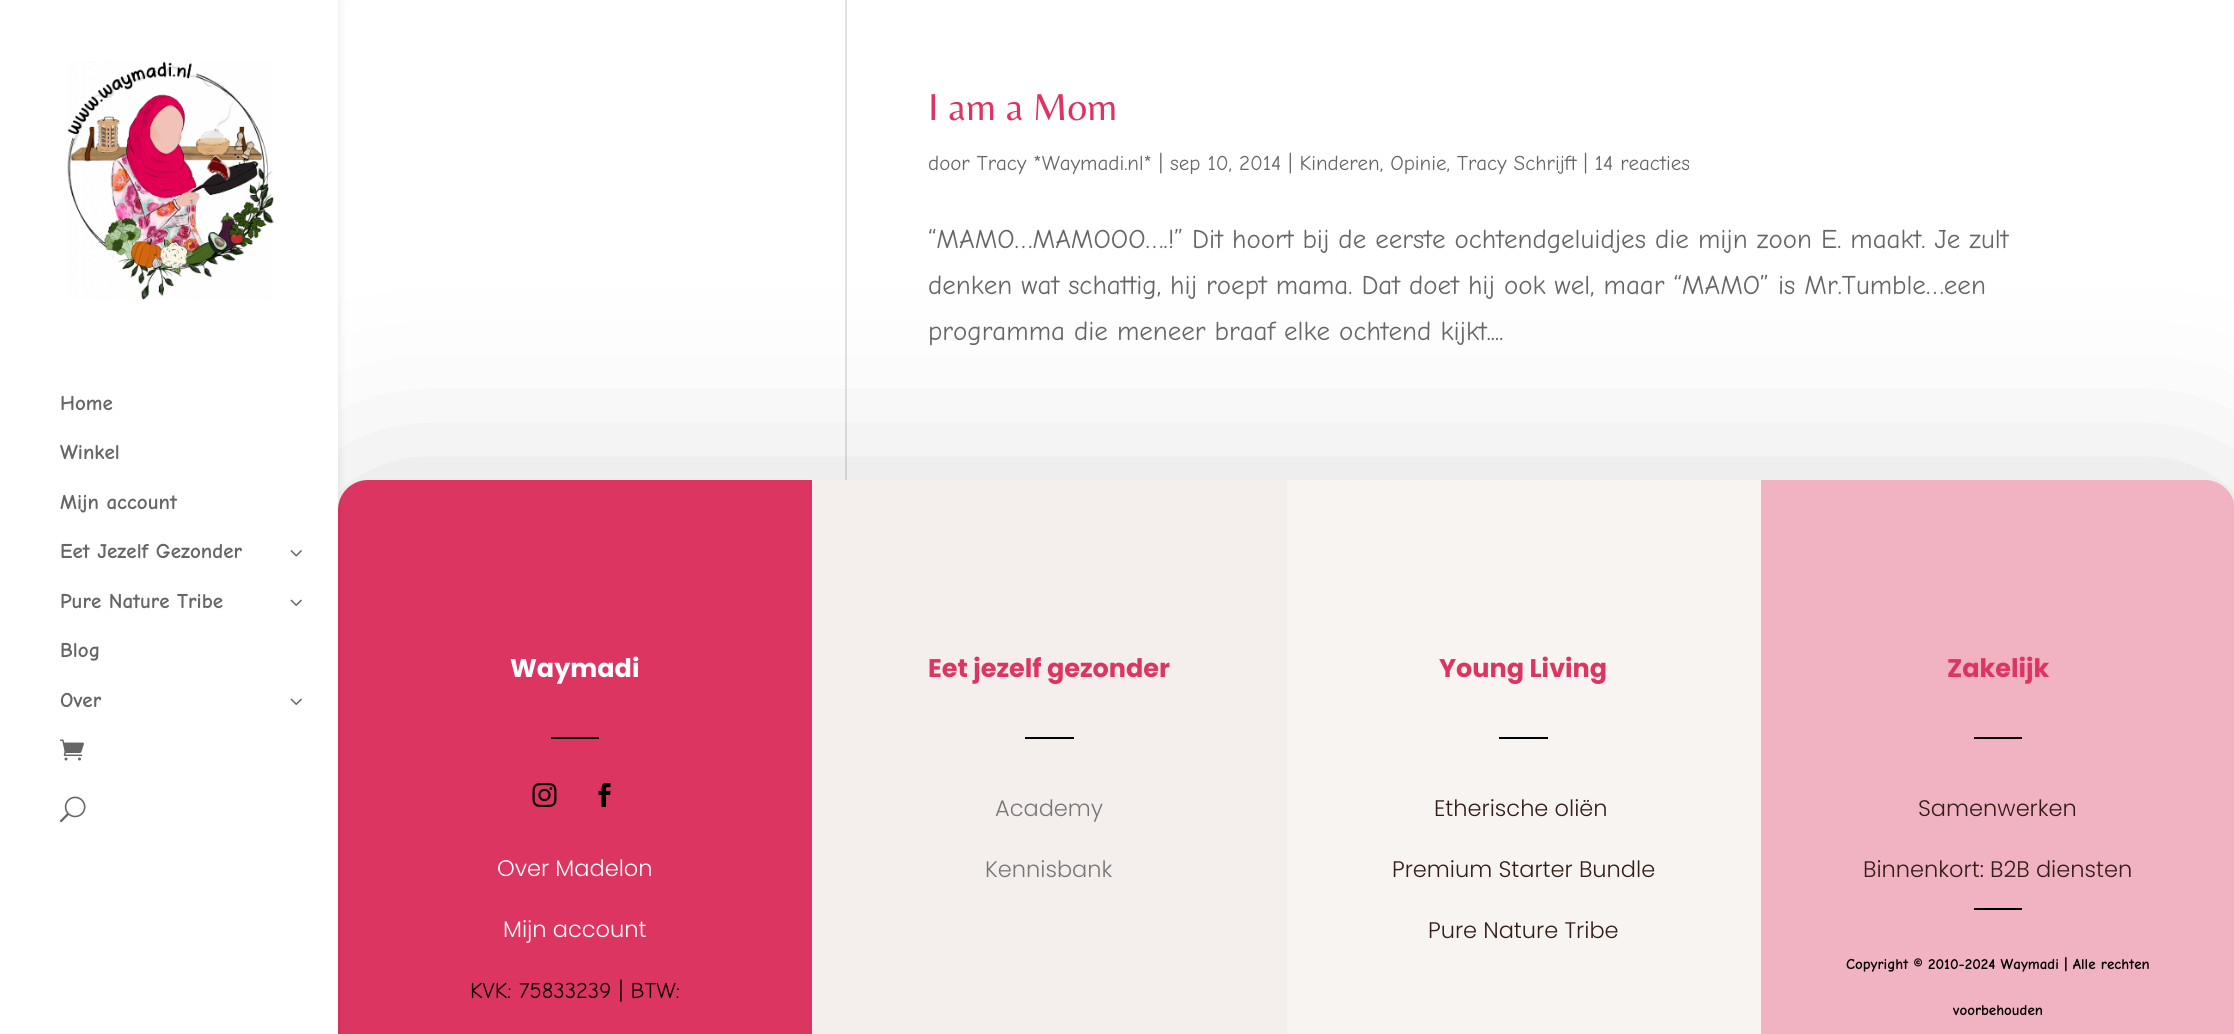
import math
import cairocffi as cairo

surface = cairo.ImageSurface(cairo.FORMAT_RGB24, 2234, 1034)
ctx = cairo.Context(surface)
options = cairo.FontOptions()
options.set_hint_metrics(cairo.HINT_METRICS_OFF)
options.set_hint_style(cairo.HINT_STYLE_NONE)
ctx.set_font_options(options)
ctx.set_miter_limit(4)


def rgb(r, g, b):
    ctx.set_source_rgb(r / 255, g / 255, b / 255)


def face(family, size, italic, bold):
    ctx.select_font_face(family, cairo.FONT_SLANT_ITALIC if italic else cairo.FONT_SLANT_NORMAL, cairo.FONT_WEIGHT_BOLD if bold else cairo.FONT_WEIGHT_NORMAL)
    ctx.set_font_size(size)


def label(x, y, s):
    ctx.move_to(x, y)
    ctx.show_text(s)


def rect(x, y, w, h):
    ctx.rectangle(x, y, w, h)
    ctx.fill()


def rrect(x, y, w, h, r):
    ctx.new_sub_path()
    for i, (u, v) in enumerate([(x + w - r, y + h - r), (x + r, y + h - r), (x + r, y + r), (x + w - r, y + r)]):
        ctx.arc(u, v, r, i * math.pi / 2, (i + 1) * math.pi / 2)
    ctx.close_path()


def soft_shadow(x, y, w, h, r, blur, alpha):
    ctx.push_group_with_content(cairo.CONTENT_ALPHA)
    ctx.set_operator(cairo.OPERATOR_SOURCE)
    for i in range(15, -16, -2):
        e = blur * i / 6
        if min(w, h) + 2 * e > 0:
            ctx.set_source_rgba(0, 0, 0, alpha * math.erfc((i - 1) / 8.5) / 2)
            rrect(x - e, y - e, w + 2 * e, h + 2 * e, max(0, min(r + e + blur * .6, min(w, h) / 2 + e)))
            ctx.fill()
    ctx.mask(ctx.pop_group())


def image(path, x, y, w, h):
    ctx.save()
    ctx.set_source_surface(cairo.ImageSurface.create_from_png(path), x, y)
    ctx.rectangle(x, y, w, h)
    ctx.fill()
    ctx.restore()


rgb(255, 255, 255)
ctx.paint()
rgb(226, 226, 226)
rect(845, 0, 2, 480)
rgb(0, 0, 0)
soft_shadow(347, 507, 1879, 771, 21, 101, 0.18)
rgb(221, 53, 98)
ctx.new_path()
ctx.move_to(368, 480)
ctx.line_to(812, 480)
ctx.line_to(812, 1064)
ctx.line_to(338, 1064)
ctx.line_to(338, 510)
ctx.curve_to(338, 493.5, 351.5, 480, 368, 480)
ctx.close_path()
ctx.fill()
rgb(0, 0, 0)
soft_shadow(0, 0, 338, 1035, 0, 5, 0.1)
rgb(255, 255, 255)
rect(0, 0, 338, 1034)
image('image0.png', 67, 61, 207, 239)
face('Comic Neue', 21, 0, 1)
rgb(102, 102, 102)
label(60, 410, 'Home')
label(60, 459, 'Winkel')
label(60, 509, 'Mijn account')
label(60, 558, 'Eet Jezelf Gezonder')
image('image1.png', 290, 550, 12, 7)
label(60, 608, 'Pure Nature Tribe')
image('image2.png', 290, 599, 12, 7)
label(60, 657, 'Blog')
label(60, 707, 'Over')
image('image2.png', 290, 698, 12, 7)
image('image3.png', 60, 739, 24, 22)
image('image4.png', 59, 796, 27, 27)
face('Belleza', 39, 0, 0)
rgb(221, 53, 98)
label(928, 120, 'I am a Mom')
face('Comic Neue', 21, 0, 0)
rgb(102, 102, 102)
label(928, 170, 'door Tracy *Waymadi.nl* | sep 10, 2014 | Kinderen, Opinie, Tracy Schrijft | 14 reacties')
face('Comic Neue', 27, 0, 0)
label(928, 248, '“MAMO…MAMOOO….!” Dit hoort bij de eerste ochtendgeluidjes die mijn zoon E. maakt. Je zult')
label(928, 294, 'denken wat schattig, hij roept mama. Dat doet hij ook wel, maar “MAMO” is Mr.Tumble…een')
label(928, 340, 'programma die meneer braaf elke ochtend kijkt....')
face('Poppins', 25.5, 0, 1)
rgb(255, 255, 255)
label(510, 677, 'Waymadi')
rgb(0, 0, 0)
rect(551, 737, 48, 2)
image('image5.png', 532, 783, 25, 24)
image('image6.png', 598, 783, 13, 24)
face('Poppins Light', 22.5, 0, 0)
rgb(255, 255, 255)
label(497, 876, 'Over Madelon')
label(503, 937, 'Mijn account')
face('Comic Neue', 22.5, 0, 0)
rgb(10, 4, 4)
label(470, 998, 'KVK: 75833239 | BTW:')
rgb(244, 239, 236)
rect(812, 480, 475, 554)
face('Poppins', 25.5, 0, 1)
rgb(221, 53, 98)
label(928, 677, 'Eet jezelf gezonder')
rgb(0, 0, 0)
rect(1025, 737, 49, 2)
face('Poppins Light', 22.5, 0, 0)
rgb(119, 119, 119)
label(995, 816, 'Academy')
label(985, 877, 'Kennisbank')
rgb(247, 244, 241)
rect(1287, 480, 474, 554)
face('Poppins', 25.5, 0, 1)
rgb(221, 53, 98)
label(1439, 677, 'Young Living')
rgb(0, 0, 0)
rect(1499, 737, 49, 2)
face('Poppins Light', 22.5, 0, 0)
rgb(52, 29, 23)
label(1434, 816, 'Etherische oliën')
label(1392, 877, 'Premium Starter Bundle')
label(1428, 938, 'Pure Nature Tribe')
rgb(241, 178, 194)
ctx.new_path()
ctx.move_to(1761, 480)
ctx.line_to(2205, 480)
ctx.curve_to(2221.5, 480, 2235, 493.5, 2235, 510)
ctx.line_to(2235, 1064)
ctx.line_to(1761, 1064)
ctx.close_path()
ctx.fill()
face('Poppins', 25.5, 0, 1)
rgb(221, 53, 98)
label(1947, 677, 'Zakelijk')
rgb(0, 0, 0)
rect(1974, 737, 48, 2)
face('Poppins Light', 22.5, 0, 0)
rgb(52, 29, 23)
label(1918, 816, 'Samenwerken')
label(1863, 877, 'Binnenkort: B2B diensten')
rgb(0, 0, 0)
rect(1974, 908, 48, 2)
face('Comic Neue', 15, 0, 1)
label(1846, 969, 'Copyright © 2010-2024 Waymadi | Alle rechten')
label(1953, 1015, 'voorbehouden')
surface.write_to_png('render.png')
